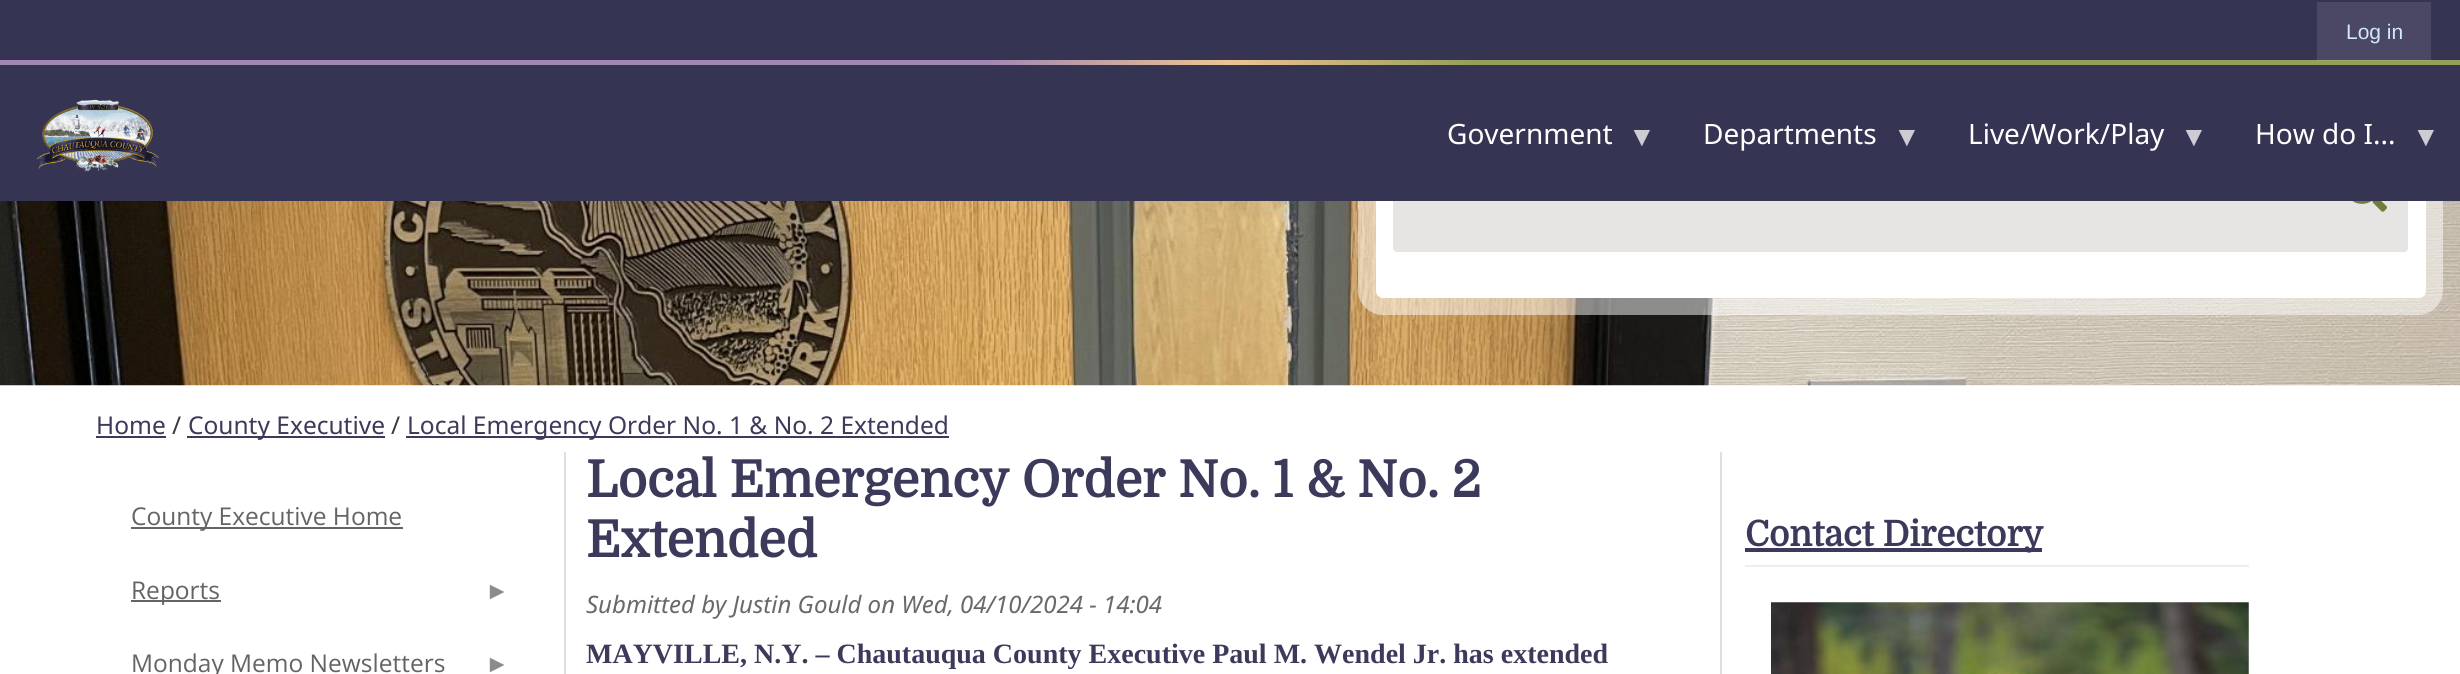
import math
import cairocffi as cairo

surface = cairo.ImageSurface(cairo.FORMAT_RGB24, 2460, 674)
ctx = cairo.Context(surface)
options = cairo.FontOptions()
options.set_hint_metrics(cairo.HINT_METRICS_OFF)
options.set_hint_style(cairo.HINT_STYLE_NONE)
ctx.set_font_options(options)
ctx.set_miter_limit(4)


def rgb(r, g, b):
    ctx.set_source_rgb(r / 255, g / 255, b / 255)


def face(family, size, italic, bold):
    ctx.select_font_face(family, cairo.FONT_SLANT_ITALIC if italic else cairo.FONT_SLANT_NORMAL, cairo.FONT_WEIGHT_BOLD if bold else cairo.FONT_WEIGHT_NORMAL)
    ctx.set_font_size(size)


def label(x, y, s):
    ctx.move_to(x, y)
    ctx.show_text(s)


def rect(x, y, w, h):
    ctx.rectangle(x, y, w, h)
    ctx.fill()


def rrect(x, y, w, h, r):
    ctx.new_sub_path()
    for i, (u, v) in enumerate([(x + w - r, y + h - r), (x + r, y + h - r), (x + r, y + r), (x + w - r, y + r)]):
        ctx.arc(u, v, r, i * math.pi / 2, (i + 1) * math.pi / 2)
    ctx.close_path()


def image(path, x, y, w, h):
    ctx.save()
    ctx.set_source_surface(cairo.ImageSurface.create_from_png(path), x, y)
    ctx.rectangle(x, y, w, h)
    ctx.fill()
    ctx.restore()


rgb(255, 255, 255)
ctx.paint()
image('image1.png', 0, 201, 2460, 185)
rrect(1367, -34, 1067, 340, 16)
ctx.set_source_rgba(1, 1, 1, 0.5)
ctx.set_line_width(18)
ctx.stroke()
rgb(255, 255, 255)
rrect(1376, -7, 1050, 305, 7)
ctx.fill()
rgb(231, 229, 228)
rrect(1393, 130, 1015, 122, 4)
ctx.fill()
image('image0.png', 2352, 201, 35, 11)
gradient = cairo.LinearGradient(0, 101, 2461, 101)
gradient.add_color_stop_rgba(0.4, 0.627, 0.529, 0.706, 1)
gradient.add_color_stop_rgba(0.5, 0.929, 0.765, 0.576, 1)
gradient.add_color_stop_rgba(0.6, 0.58, 0.624, 0.345, 1)
ctx.set_source(gradient)
rect(0, 60, 2460, 5)
rgb(54, 52, 83)
rect(0, 0, 2460, 60)
ctx.set_source_rgba(1, 1, 1, 0.1)
rect(2317, 2, 114, 59)
face('Liberation Sans', 21, 0, 0)
rgb(211, 232, 255)
label(2346, 39, 'Log in')
rgb(54, 52, 83)
rect(0, 65, 2460, 136)
image('image2.png', 36, 99, 123, 73)
face('Noto Sans', 28, 0, 0)
rgb(255, 255, 255)
label(1447, 144, 'Government')
face('Liberation Sans', 28, 0, 0)
rgb(205, 204, 212)
label(1628, 146, '▼')
face('Noto Sans', 28, 0, 0)
rgb(255, 255, 255)
label(1703, 144, 'Departments')
face('Liberation Sans', 28, 0, 0)
rgb(205, 204, 212)
label(1893, 146, '▼')
face('Noto Sans', 28, 0, 0)
rgb(255, 255, 255)
label(1968, 144, 'Live/Work/Play')
face('Liberation Sans', 28, 0, 0)
rgb(205, 204, 212)
label(2180, 146, '▼')
face('Noto Sans', 28, 0, 0)
rgb(255, 255, 255)
label(2255, 144, 'How do I...')
face('Liberation Sans', 28, 0, 0)
rgb(205, 204, 212)
label(2412, 146, '▼')
face('Noto Sans', 24.5, 0, 0)
rgb(60, 58, 90)
label(96, 434, 'Home')
rect(96, 436, 70, 2)
rgb(59, 59, 59)
label(172, 434, '/')
rgb(60, 58, 90)
rect(187, 436, 198, 2)
label(188, 434, 'County Executive')
rgb(59, 59, 59)
label(391, 434, '/')
rgb(60, 58, 90)
rect(406, 436, 543, 2)
label(407, 434, 'Local Emergency Order No. 1 & No. 2 Extended')
rgb(220, 225, 222)
rect(564, 452, 2, 222)
rgb(100, 100, 100)
rect(131, 527, 272, 2)
face('Open Sans', 24.5, 0, 0)
label(131, 525, 'County Executive Home')
rect(131, 600, 90, 2)
label(131, 599, 'Reports')
face('Liberation Serif', 24.5, 0, 0)
rgb(139, 139, 139)
label(485, 599, '►')
face('Open Sans', 24.5, 0, 0)
rgb(100, 100, 100)
label(131, 672, 'Monday Memo Newsletters')
face('Liberation Serif', 24.5, 0, 0)
rgb(139, 139, 139)
label(485, 672, '►')
face('Domine', 50.4, 0, 1)
rgb(60, 58, 90)
label(586, 497, 'Local Emergency Order No. 1 & No. 2')
label(586, 557, 'Extended')
face('Noto Sans', 24, 1, 0)
rgb(104, 105, 107)
label(586, 613, 'Submitted by Justin Gould on Wed, 04/10/2024 - 14:04')
face('Liberation Serif', 28, 0, 1)
rgb(60, 58, 90)
label(586, 663, 'MAYVILLE, N.Y. – Chautauqua County Executive Paul M. Wendel Jr. has extended')
rgb(220, 225, 222)
rect(1720, 452, 2, 222)
rgb(238, 238, 238)
rect(1745, 565, 504, 2)
rgb(60, 58, 90)
rect(1745, 548, 297, 4)
face('Domine', 35, 0, 1)
label(1745, 546, 'Contact Directory')
image('image3.png', 1771, 602, 478, 72)
surface.write_to_png('render.png')
